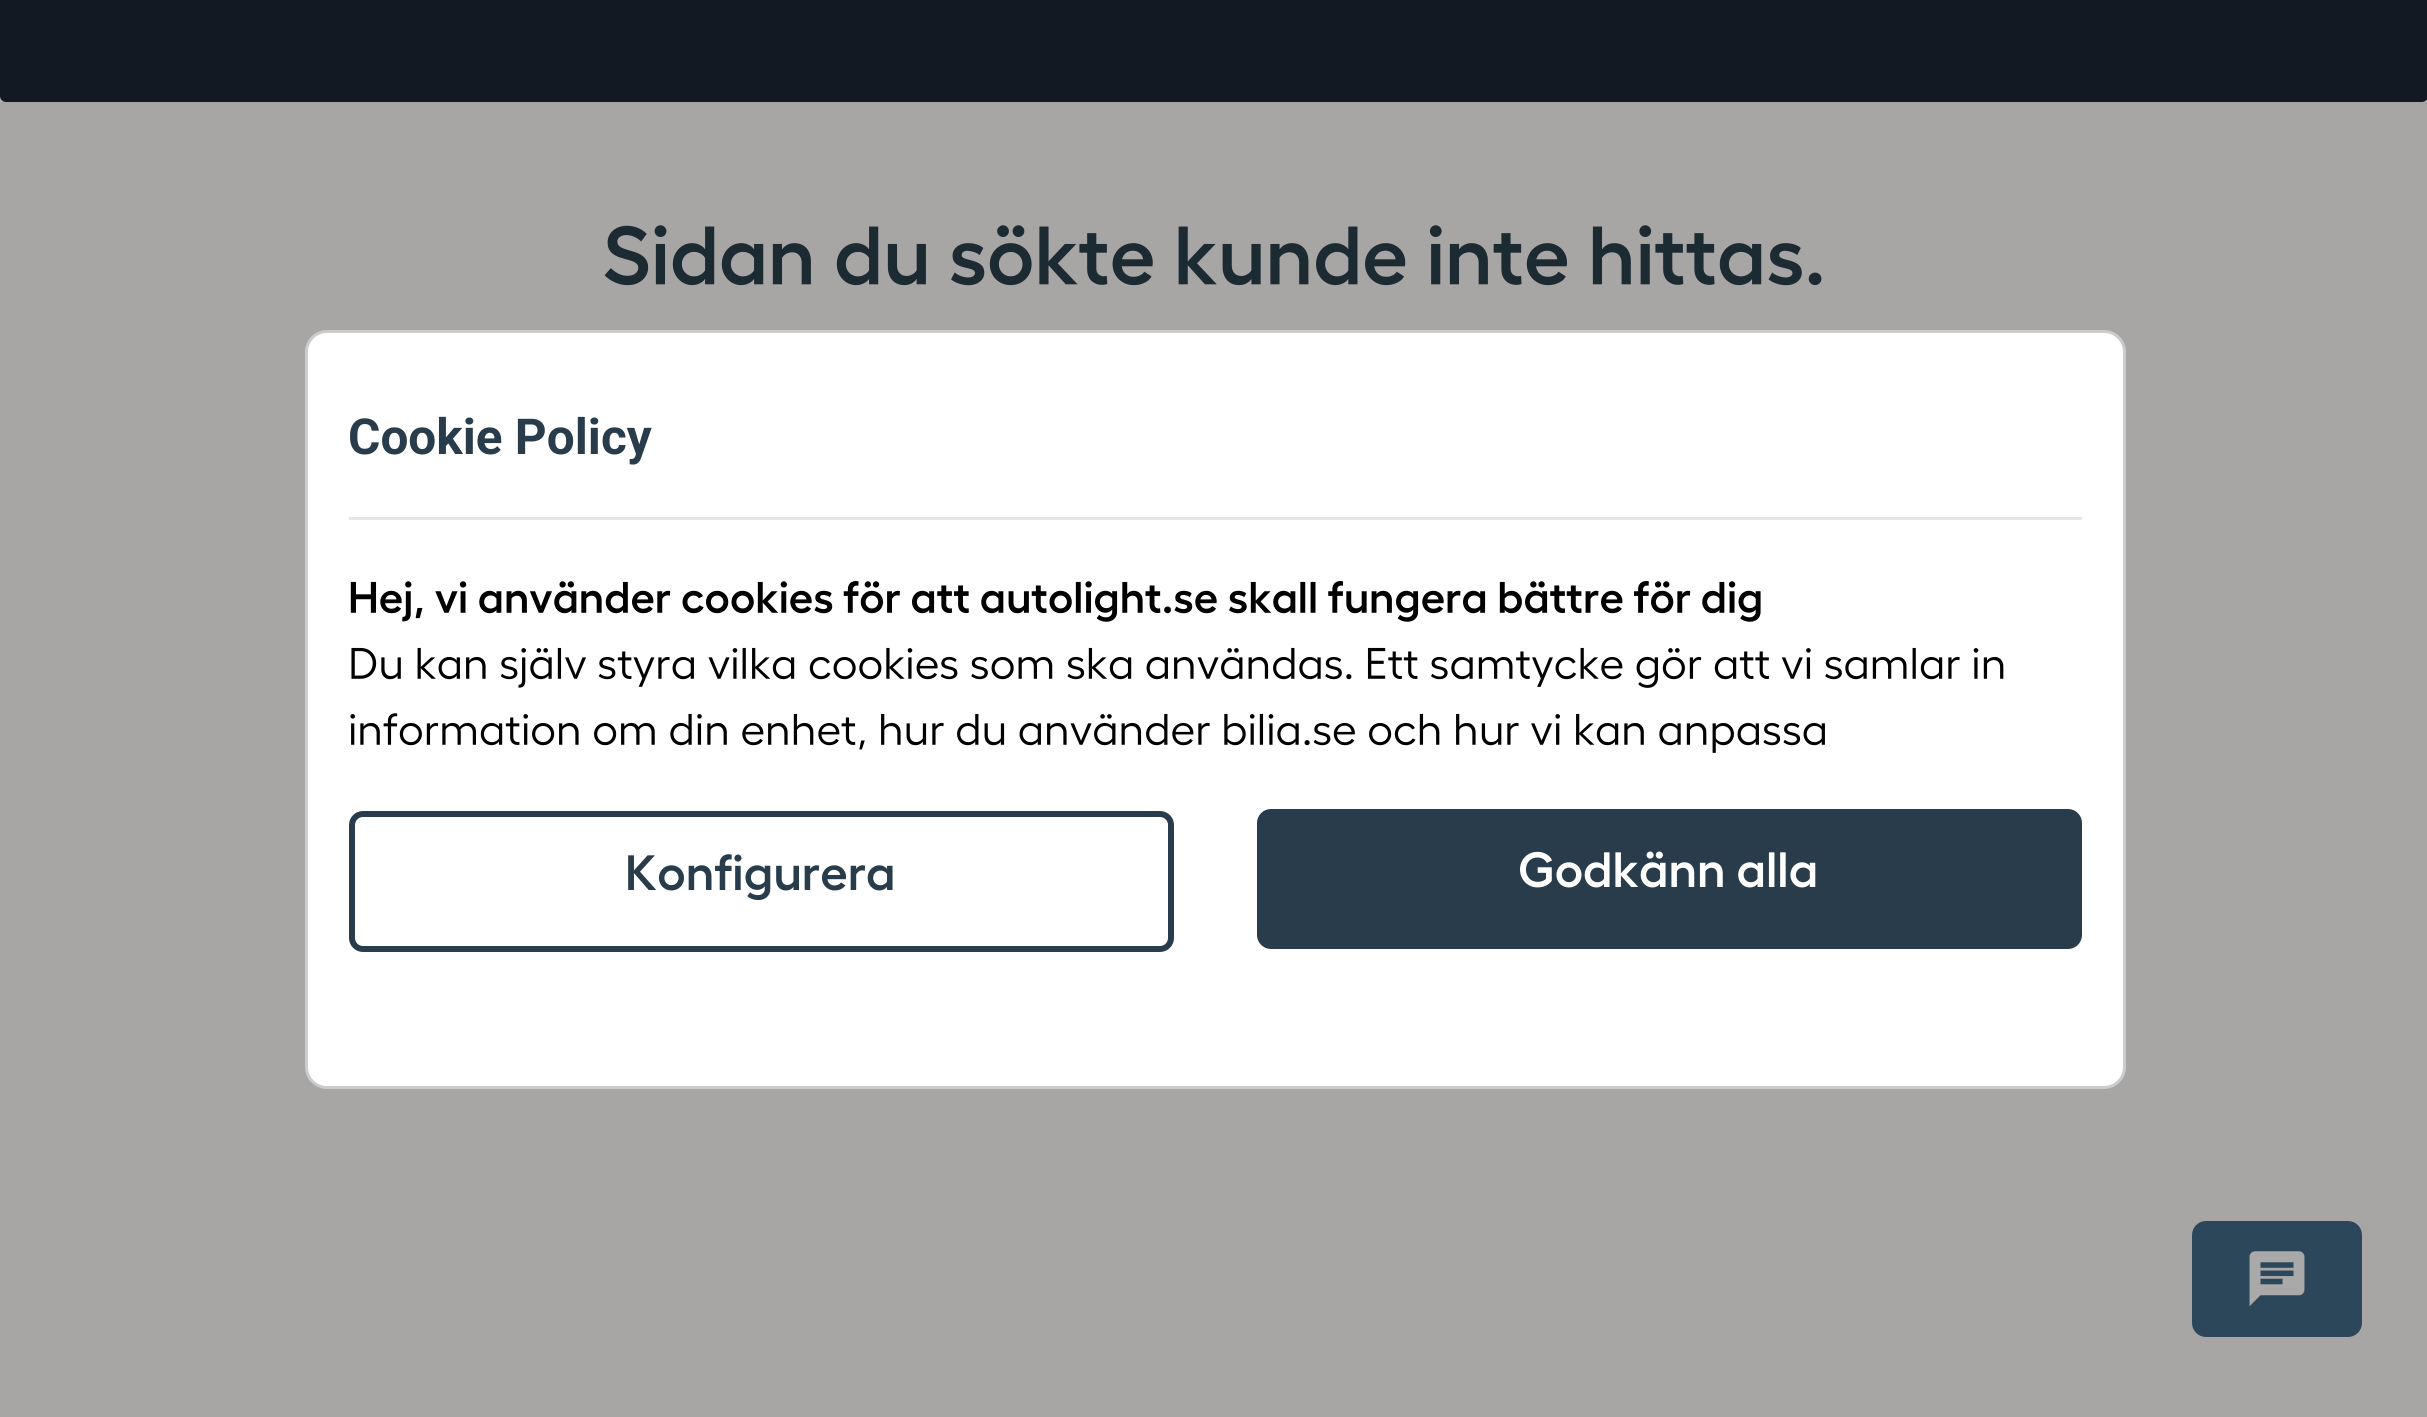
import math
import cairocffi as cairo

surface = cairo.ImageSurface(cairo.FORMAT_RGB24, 2427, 1417)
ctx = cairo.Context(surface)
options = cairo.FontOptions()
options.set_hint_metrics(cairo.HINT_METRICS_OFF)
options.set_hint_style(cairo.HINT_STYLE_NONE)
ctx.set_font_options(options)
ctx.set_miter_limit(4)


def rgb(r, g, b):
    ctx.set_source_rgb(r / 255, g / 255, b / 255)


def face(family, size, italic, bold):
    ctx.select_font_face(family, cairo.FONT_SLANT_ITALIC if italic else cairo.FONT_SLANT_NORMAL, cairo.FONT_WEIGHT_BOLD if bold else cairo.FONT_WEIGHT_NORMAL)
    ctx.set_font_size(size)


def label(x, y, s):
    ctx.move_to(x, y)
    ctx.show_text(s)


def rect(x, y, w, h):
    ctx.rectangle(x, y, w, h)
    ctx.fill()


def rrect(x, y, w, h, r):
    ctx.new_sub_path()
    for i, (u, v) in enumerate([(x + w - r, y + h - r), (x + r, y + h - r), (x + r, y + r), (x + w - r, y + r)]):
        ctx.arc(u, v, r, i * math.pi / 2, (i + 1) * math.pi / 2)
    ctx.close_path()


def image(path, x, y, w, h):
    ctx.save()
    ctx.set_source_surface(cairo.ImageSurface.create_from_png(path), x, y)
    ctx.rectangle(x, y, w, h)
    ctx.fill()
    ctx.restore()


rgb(168, 165, 165)
ctx.paint()
rgb(179, 179, 179)
rect(0, 96, 2427, 6)
rgb(165, 165, 165)
rect(0, 102, 2427, 3)
rgb(18, 25, 35)
rrect(0, -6, 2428, 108, 6)
ctx.fill()
face('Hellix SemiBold', 82.5, 0, 0)
rgb(28, 42, 50)
label(603, 281, 'Sidan du sökte kunde inte hittas.')
rgb(45, 71, 90)
rrect(2193.5, 1222.5, 167, 113, 12.5)
ctx.fill_preserve()
ctx.set_line_width(3)
ctx.stroke()
image('image0.png', 2249, 1251, 56, 55)
rgb(255, 255, 255)
rrect(306.5, 331.5, 1818, 756, 20.5)
ctx.fill_preserve()
rgb(204, 204, 204)
ctx.stroke()
face('Roboto', 49.5, 0, 1)
rgb(40, 60, 75)
label(348, 454, 'Cookie Policy')
rgb(230, 230, 230)
rect(349, 517, 1733, 3)
face('Hellix SemiBold', 44, 0, 0)
rgb(0, 0, 0)
label(348, 611, 'Hej, vi använder cookies för att autolight.se skall fungera bättre för dig')
face('Hellix', 44, 0, 0)
label(348, 677, 'Du kan själv styra vilka cookies som ska användas. Ett samtycke gör att vi samlar in')
label(348, 743, 'information om din enhet, hur du använder bilia.se och hur vi kan anpassa')
rrect(352, 814, 819, 135, 11)
rgb(40, 60, 75)
ctx.set_line_width(6)
ctx.stroke()
face('Hellix SemiBold', 49.5, 0, 0)
label(625, 888, 'Konfigurera')
rrect(1260, 812, 819, 134, 11)
ctx.fill_preserve()
ctx.stroke()
rgb(255, 255, 255)
label(1518, 885, 'Godkänn alla')
surface.write_to_png('render.png')
